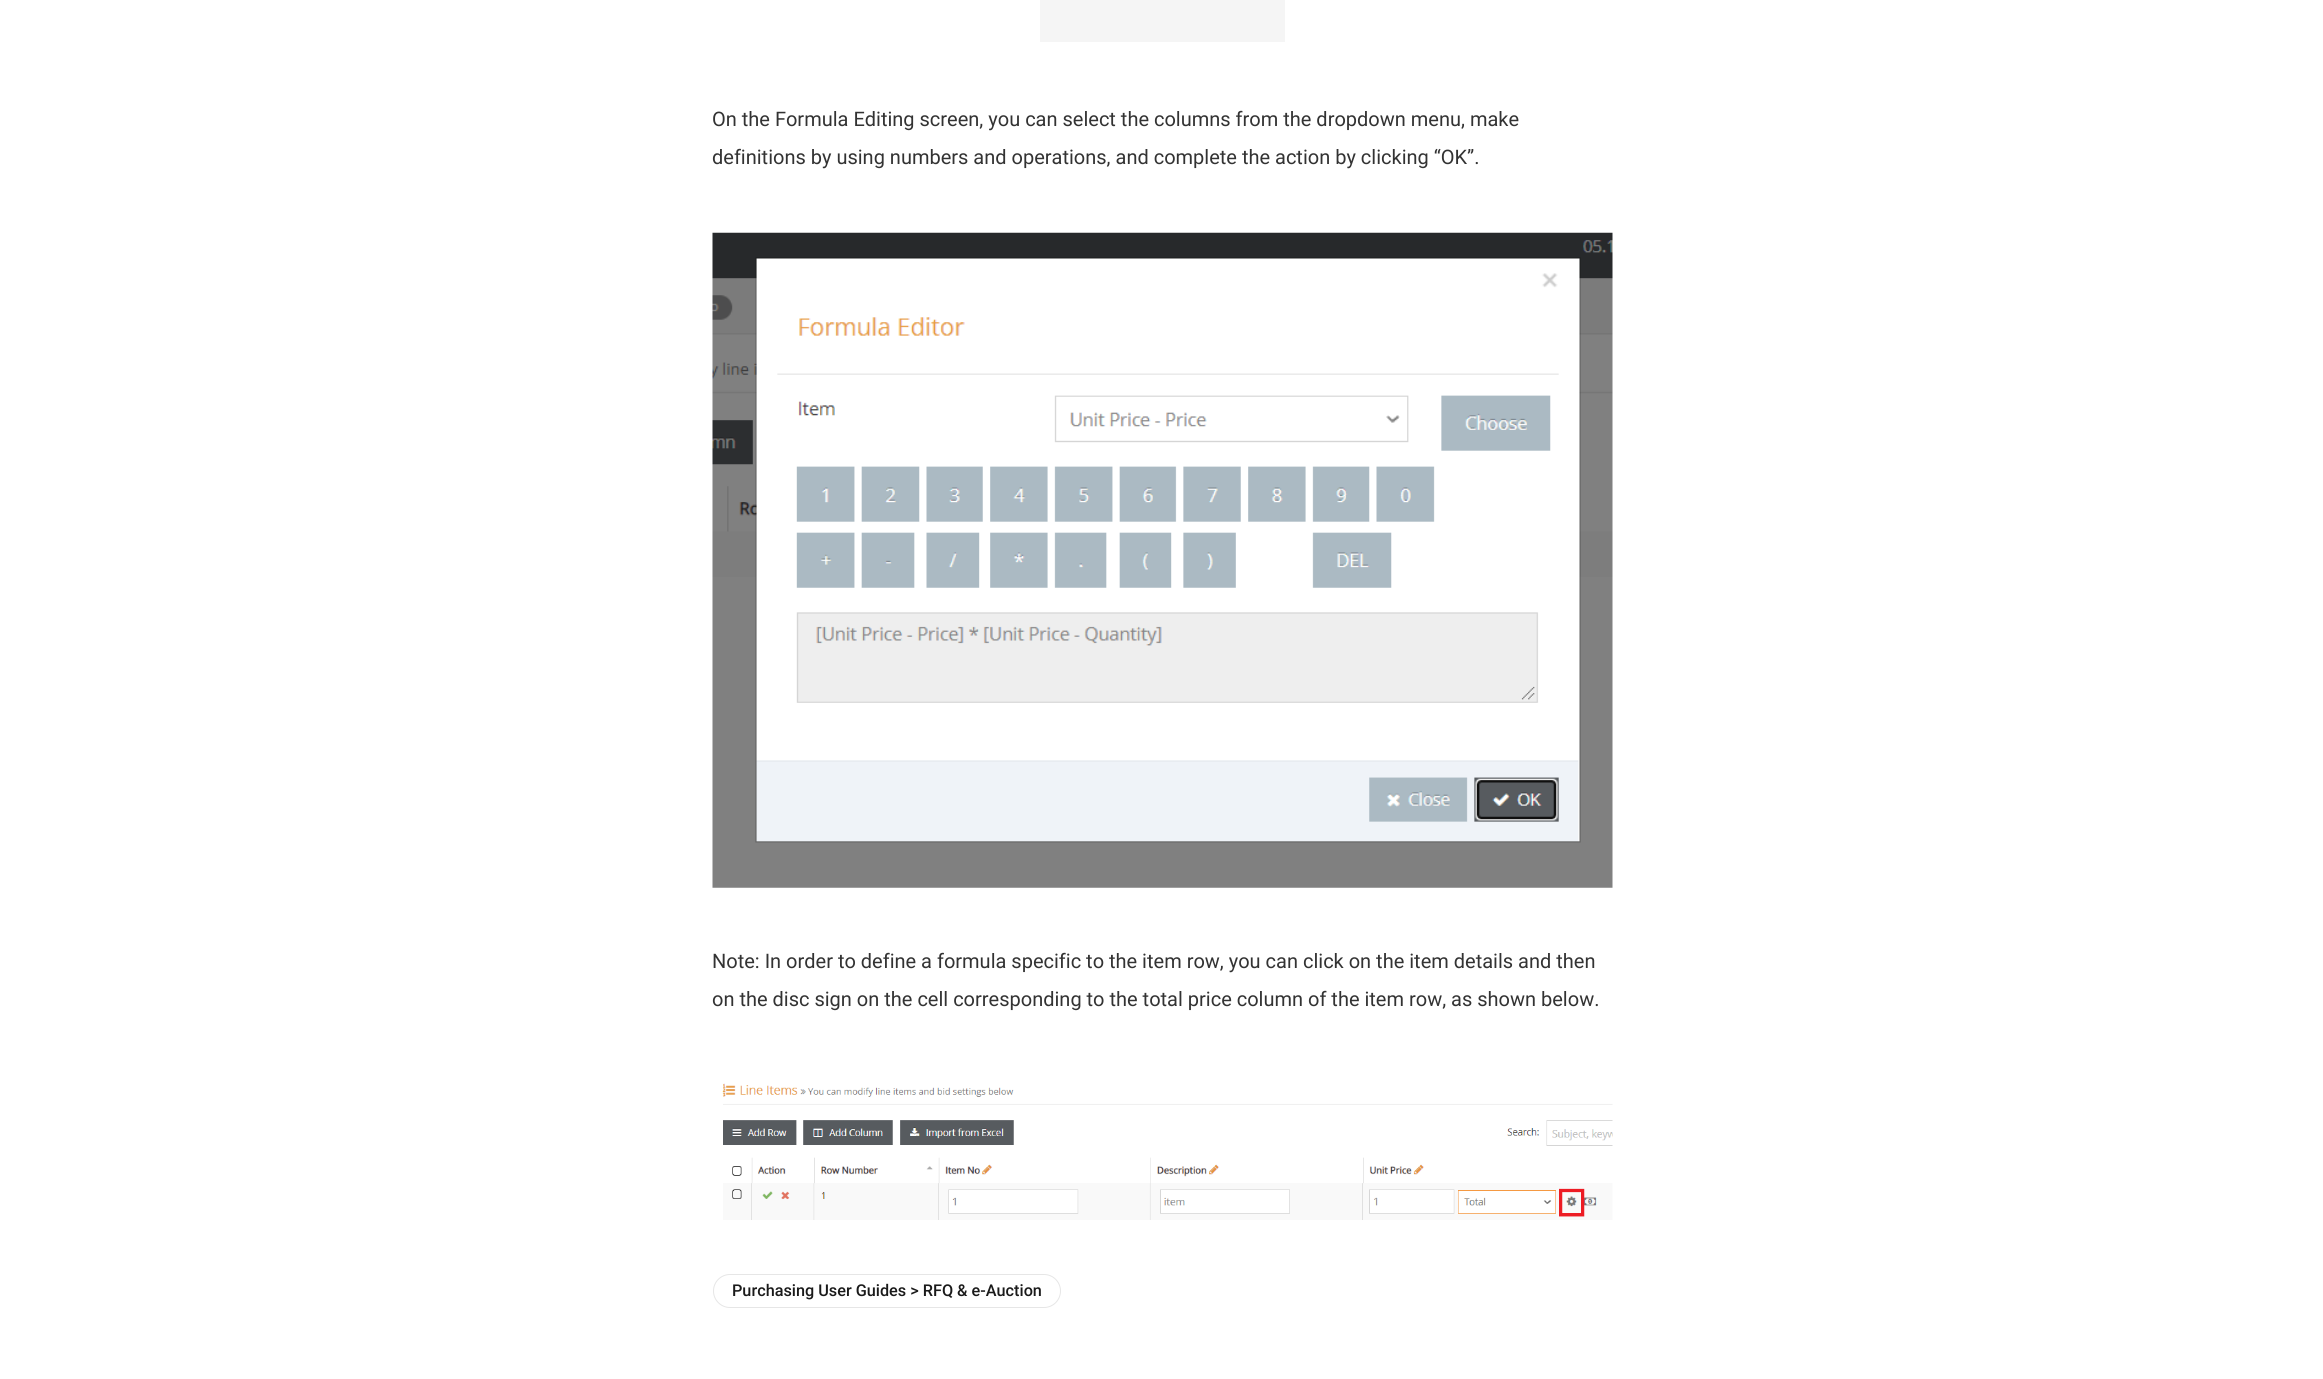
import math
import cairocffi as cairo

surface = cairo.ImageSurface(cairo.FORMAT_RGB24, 2323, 1379)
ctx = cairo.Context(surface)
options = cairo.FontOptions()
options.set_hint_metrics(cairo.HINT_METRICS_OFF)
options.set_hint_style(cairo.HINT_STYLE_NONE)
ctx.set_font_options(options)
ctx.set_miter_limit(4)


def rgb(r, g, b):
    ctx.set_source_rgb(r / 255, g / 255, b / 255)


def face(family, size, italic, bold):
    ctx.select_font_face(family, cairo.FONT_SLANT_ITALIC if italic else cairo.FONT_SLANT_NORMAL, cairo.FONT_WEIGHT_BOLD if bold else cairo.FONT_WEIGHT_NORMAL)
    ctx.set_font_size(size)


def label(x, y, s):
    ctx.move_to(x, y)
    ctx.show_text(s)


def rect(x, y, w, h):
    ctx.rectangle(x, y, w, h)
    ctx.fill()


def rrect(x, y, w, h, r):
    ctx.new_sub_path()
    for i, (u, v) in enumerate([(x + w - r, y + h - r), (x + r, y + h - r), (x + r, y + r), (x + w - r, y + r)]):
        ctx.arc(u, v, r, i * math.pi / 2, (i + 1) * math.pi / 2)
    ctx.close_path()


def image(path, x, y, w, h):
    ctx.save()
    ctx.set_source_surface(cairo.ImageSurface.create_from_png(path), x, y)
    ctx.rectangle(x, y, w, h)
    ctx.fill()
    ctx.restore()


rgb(255, 255, 255)
ctx.paint()
rgb(245, 245, 245)
rect(1040, 0, 245, 42)
face('Roboto', 20, 0, 0)
rgb(51, 51, 51)
label(712, 126, 'On the Formula Editing screen, you can select the columns from the dropdown menu, make')
label(712, 164, 'definitions by using numbers and operations, and complete the action by clicking “OK”.')
image('image0.png', 712, 232, 901, 656)
label(712, 968, 'Note: In order to define a formula specific to the item row, you can click on the item details and then')
label(712, 1006, 'on the disc sign on the cell corresponding to the total price column of the item row, as shown below.')
image('image1.png', 722, 1083, 891, 137)
rrect(713.5, 1274.5, 347, 33, 16.5)
rgb(230, 230, 230)
ctx.set_line_width(1)
ctx.stroke()
face('Roboto Medium', 16.25, 0, 0)
rgb(26, 26, 26)
label(732, 1296, 'Purchasing User Guides > RFQ & e-Auction')
surface.write_to_png('render.png')
